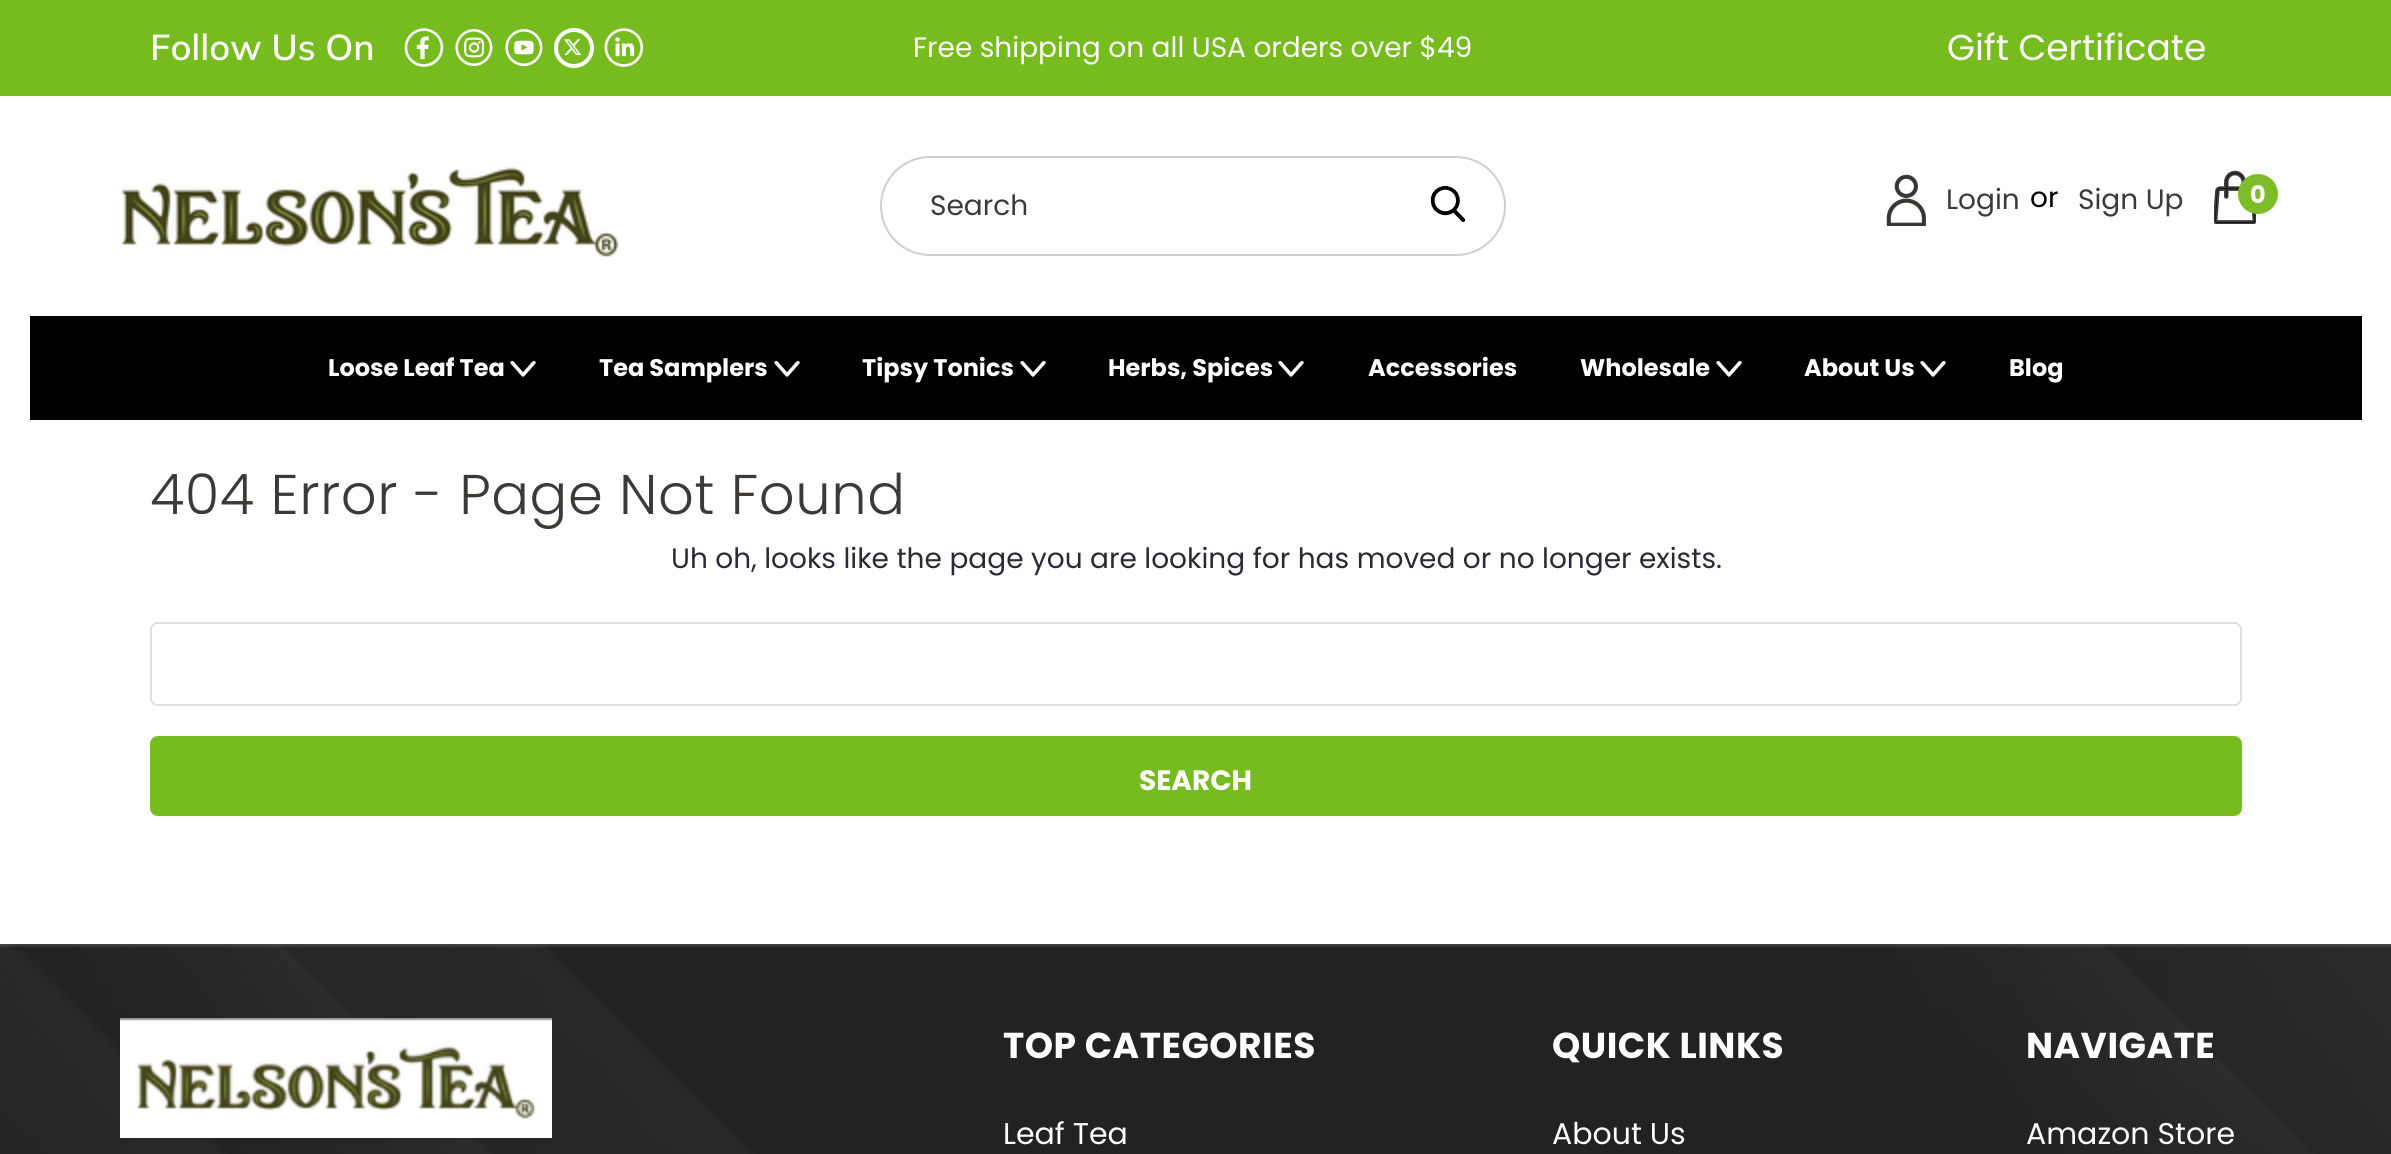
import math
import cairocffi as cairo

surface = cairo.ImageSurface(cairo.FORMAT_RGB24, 2391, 1154)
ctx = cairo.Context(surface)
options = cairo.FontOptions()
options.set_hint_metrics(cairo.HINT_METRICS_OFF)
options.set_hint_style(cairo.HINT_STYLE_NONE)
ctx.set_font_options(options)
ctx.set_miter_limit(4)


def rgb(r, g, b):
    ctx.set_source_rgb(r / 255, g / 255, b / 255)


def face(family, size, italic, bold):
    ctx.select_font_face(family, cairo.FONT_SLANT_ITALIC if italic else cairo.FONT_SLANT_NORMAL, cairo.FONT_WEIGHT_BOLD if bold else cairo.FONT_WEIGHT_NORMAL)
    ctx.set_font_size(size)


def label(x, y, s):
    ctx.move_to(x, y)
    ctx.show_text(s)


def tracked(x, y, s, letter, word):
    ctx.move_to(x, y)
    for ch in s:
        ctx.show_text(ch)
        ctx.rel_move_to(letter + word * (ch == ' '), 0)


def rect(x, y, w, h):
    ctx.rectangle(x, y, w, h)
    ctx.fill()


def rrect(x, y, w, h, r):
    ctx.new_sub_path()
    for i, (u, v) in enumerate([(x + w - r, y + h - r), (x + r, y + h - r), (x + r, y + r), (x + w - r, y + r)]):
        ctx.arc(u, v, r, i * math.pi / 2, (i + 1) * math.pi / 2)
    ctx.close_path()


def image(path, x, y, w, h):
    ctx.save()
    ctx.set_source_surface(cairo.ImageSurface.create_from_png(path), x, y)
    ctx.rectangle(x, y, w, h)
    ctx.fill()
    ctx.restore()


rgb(255, 255, 255)
ctx.paint()
rgb(119, 188, 31)
rect(0, 0, 2391, 96)
face('Mulish SemiBold', 36, 0, 0)
rgb(255, 255, 255)
label(150, 60, 'Follow Us On')
image('image0.png', 404, 28, 40, 39)
image('image1.png', 455, 29, 38, 37)
image('image2.png', 505, 29, 38, 38)
ctx.arc(574, 48, 18, 0, 2 * math.pi)
ctx.set_line_width(4)
ctx.stroke()
image('image3.png', 564, 39, 18, 17)
image('image4.png', 604, 28, 40, 39)
face('Poppins', 28, 0, 0)
label(913, 57, 'Free shipping on all USA orders over $49')
face('Poppins', 36, 0, 0)
label(1947, 60, 'Gift Certificate')
image('image5.png', 121, 167, 498, 90)
rrect(881, 157, 624, 98, 49)
rgb(207, 207, 207)
ctx.set_line_width(2)
ctx.stroke()
face('Poppins', 28, 0, 0)
rgb(60, 57, 54)
label(930, 215, 'Search')
image('image6.png', 1430, 186, 36, 36)
image('image7.png', 1886, 174, 40, 52)
label(1946, 209, 'Login')
rgb(0, 0, 0)
label(2030, 207, 'or')
rgb(60, 57, 54)
label(2078, 209, 'Sign Up')
image('image8.png', 2214, 170, 42, 54)
rgb(125, 189, 42)
ctx.arc(2258, 194, 19, 0, 2 * math.pi)
ctx.fill_preserve()
ctx.stroke()
face('Poppins', 24, 0, 1)
rgb(255, 255, 255)
label(2250, 203, '0')
rgb(0, 0, 0)
rect(30, 316, 2332, 104)
rgb(255, 255, 255)
label(328, 376, 'Loose Leaf Tea')
image('image9.png', 510, 360, 26, 17)
label(599, 376, 'Tea Samplers')
image('image9.png', 774, 360, 26, 17)
label(862, 376, 'Tipsy Tonics')
image('image9.png', 1020, 360, 26, 17)
label(1108, 376, 'Herbs, Spices')
image('image9.png', 1278, 360, 26, 17)
label(1368, 376, 'Accessories')
label(1580, 376, 'Wholesale')
image('image9.png', 1716, 360, 26, 17)
label(1804, 376, 'About Us')
image('image9.png', 1920, 360, 26, 17)
label(2009, 376, 'Blog')
face('Poppins Light', 56, 0, 0)
rgb(60, 57, 54)
tracked(150, 514, '404 Error - Page Not Found', 0.5, 0)
face('Poppins', 28, 0, 0)
rgb(43, 41, 53)
label(671, 568, 'Uh oh, looks like the page you are looking for has moved or no longer exists.')
rrect(151, 623, 2090, 82, 7)
rgb(225, 223, 221)
ctx.stroke()
rgb(119, 188, 31)
rrect(151, 737, 2090, 78, 7)
ctx.fill_preserve()
ctx.stroke()
face('Poppins', 28, 0, 1)
rgb(255, 255, 255)
label(1139, 790, 'SEARCH')
image('image10.png', 0, 944, 2391, 210)
image('image11.png', 120, 1018, 432, 120)
face('Poppins', 36, 0, 1)
tracked(1003, 1058, 'TOP CATEGORIES', 0.5, 0)
face('Poppins', 30, 0, 0)
label(1003, 1144, 'Leaf Tea')
face('Poppins', 36, 0, 1)
tracked(1552, 1058, 'QUICK LINKS', 0.5, 0)
face('Poppins', 30, 0, 0)
label(1552, 1144, 'About Us')
face('Poppins', 36, 0, 1)
tracked(2026, 1058, 'NAVIGATE', 0.5, 0)
face('Poppins', 30, 0, 0)
label(2026, 1144, 'Amazon Store')
surface.write_to_png('render.png')
